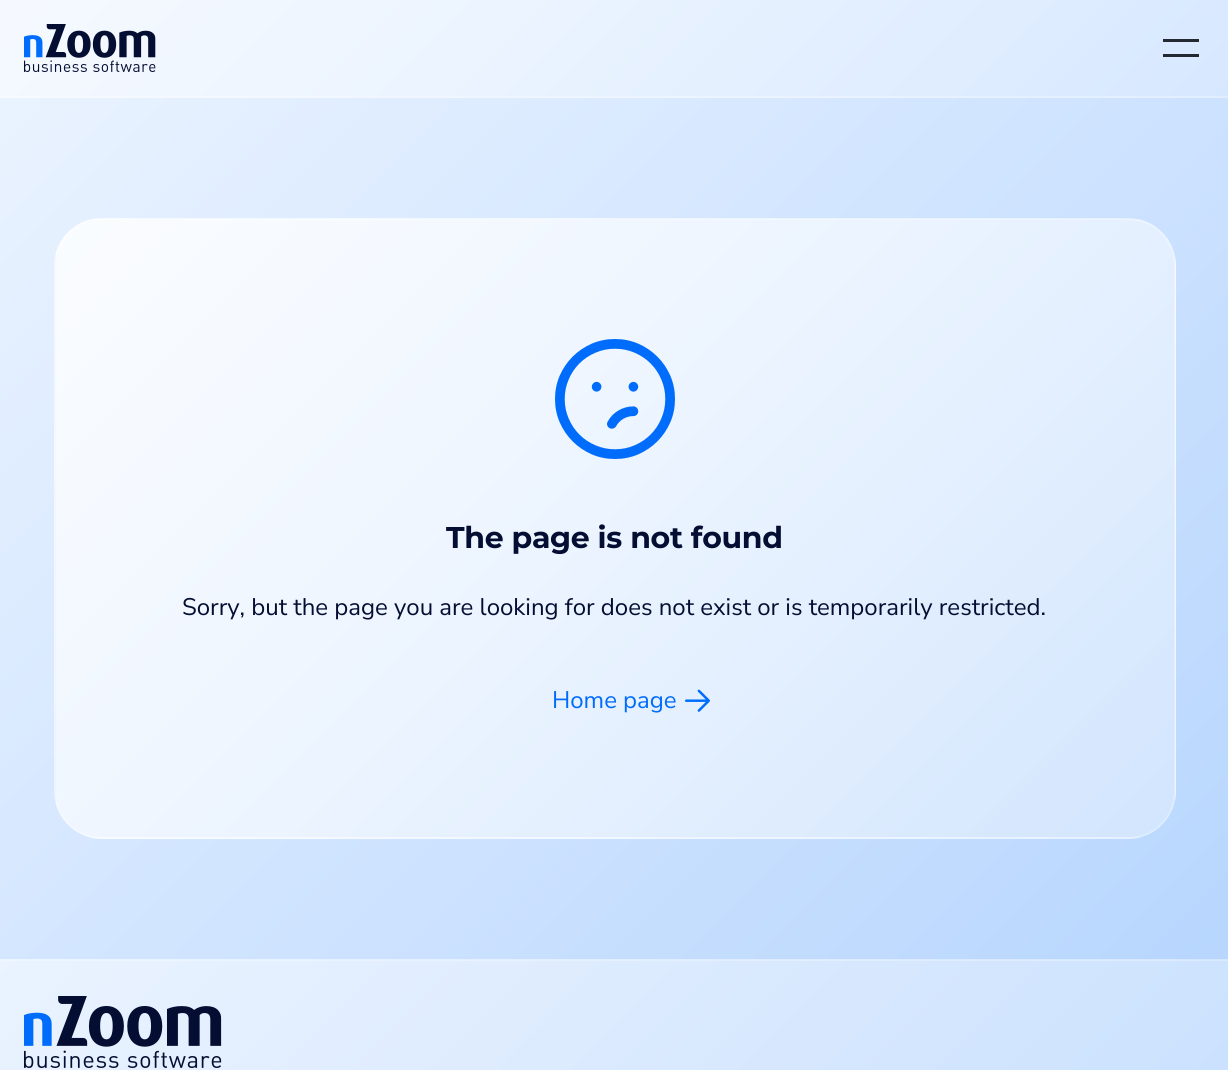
import math
import cairocffi as cairo

surface = cairo.ImageSurface(cairo.FORMAT_RGB24, 1228, 1070)
ctx = cairo.Context(surface)
options = cairo.FontOptions()
options.set_hint_metrics(cairo.HINT_METRICS_OFF)
options.set_hint_style(cairo.HINT_STYLE_NONE)
ctx.set_font_options(options)
ctx.set_miter_limit(4)


def rgb(r, g, b):
    ctx.set_source_rgb(r / 255, g / 255, b / 255)


def face(family, size, italic, bold):
    ctx.select_font_face(family, cairo.FONT_SLANT_ITALIC if italic else cairo.FONT_SLANT_NORMAL, cairo.FONT_WEIGHT_BOLD if bold else cairo.FONT_WEIGHT_NORMAL)
    ctx.set_font_size(size)


def label(x, y, s):
    ctx.move_to(x, y)
    ctx.show_text(s)


def tracked(x, y, s, letter, word):
    ctx.move_to(x, y)
    for ch in s:
        ctx.show_text(ch)
        ctx.rel_move_to(letter + word * (ch == ' '), 0)


def rect(x, y, w, h):
    ctx.rectangle(x, y, w, h)
    ctx.fill()


def rrect(x, y, w, h, r):
    ctx.new_sub_path()
    for i, (u, v) in enumerate([(x + w - r, y + h - r), (x + r, y + h - r), (x + r, y + r), (x + w - r, y + r)]):
        ctx.arc(u, v, r, i * math.pi / 2, (i + 1) * math.pi / 2)
    ctx.close_path()


def image(path, x, y, w, h):
    ctx.save()
    ctx.set_source_surface(cairo.ImageSurface.create_from_png(path), x, y)
    ctx.rectangle(x, y, w, h)
    ctx.fill()
    ctx.restore()


rgb(255, 255, 255)
ctx.paint()
gradient = cairo.LinearGradient(-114, 114, 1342, 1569)
gradient.add_color_stop_rgba(0, 0.925, 0.957, 1, 1)
gradient.add_color_stop_rgba(1, 0.651, 0.8, 0.996, 1)
ctx.set_source(gradient)
rect(0, 0, 1228, 1070)
gradient = cairo.LinearGradient(-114, 114, 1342, 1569)
gradient.add_color_stop_rgba(0, 0.945, 0.969, 1, 1)
gradient.add_color_stop_rgba(1, 0.737, 0.851, 0.996, 1)
ctx.set_source(gradient)
rect(0, 96, 1228, 2)
gradient = cairo.LinearGradient(283, -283, 945, 379)
gradient.add_color_stop_rgba(0, 1, 1, 1, 0.5)
gradient.add_color_stop_rgba(1, 1, 1, 1, 0.2)
ctx.set_source(gradient)
rect(0, 0, 1228, 96)
gradient = cairo.LinearGradient(283, -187, 945, 475)
gradient.add_color_stop_rgba(0, 1, 1, 1, 0.5)
gradient.add_color_stop_rgba(1, 1, 1, 1, 0.2)
ctx.set_source(gradient)
rect(0, 96, 1228, 2)
image('image0.png', 24, 24, 132, 48)
rgb(35, 40, 49)
rect(1163, 39, 36, 3)
rect(1163, 54, 36, 3)
ctx.save()
rrect(54, 218, 1122, 621, 48)
ctx.clip()
gradient = cairo.LinearGradient(181, -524, 1049, 344)
gradient.add_color_stop_rgba(0, 1, 1, 1, 0.8)
gradient.add_color_stop_rgba(1, 1, 1, 1, 0.32)
ctx.set_source(gradient)
rect(92, 218, 1045, 1)
gradient = cairo.LinearGradient(-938, 94, -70, 962)
gradient.add_color_stop_rgba(0, 1, 1, 1, 0.8)
gradient.add_color_stop_rgba(1, 1, 1, 1, 0.32)
ctx.set_source(gradient)
rect(54, 252, 2, 552)
gradient = cairo.LinearGradient(181, 94, 1049, 962)
gradient.add_color_stop_rgba(0, 1, 1, 1, 0.8)
gradient.add_color_stop_rgba(1, 1, 1, 1, 0.32)
ctx.set_source(gradient)
rect(56, 219, 1119, 618)
gradient = cairo.LinearGradient(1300, 94, 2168, 962)
gradient.add_color_stop_rgba(0, 1, 1, 1, 0.8)
gradient.add_color_stop_rgba(1, 1, 1, 1, 0.32)
ctx.set_source(gradient)
rect(1175, 256, 1, 545)
gradient = cairo.LinearGradient(181, 712, 1049, 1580)
gradient.add_color_stop_rgba(0, 1, 1, 1, 0.8)
gradient.add_color_stop_rgba(1, 1, 1, 1, 0.32)
ctx.set_source(gradient)
rect(88, 837, 1054, 2)
ctx.restore()
rrect(55, 219, 1120, 619, 47)
ctx.set_source_rgba(1, 1, 1, 0.25)
ctx.stroke()
image('image1.png', 555, 339, 120, 120)
face('Montserrat', 30, 0, 1)
rgb(4, 14, 50)
tracked(446, 548, 'The page is not found', -0.3, 0)
face('Nunito Sans', 24, 0, 0)
label(182, 615, 'Sorry, but the page you are looking for does not exist or is temporarily restricted.')
rgb(0, 108, 252)
label(552, 708, 'Home page')
image('image2.png', 685, 689, 25, 23)
gradient = cairo.LinearGradient(126, 111, 1102, 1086)
gradient.add_color_stop_rgba(0, 1, 1, 1, 0.5)
gradient.add_color_stop_rgba(1, 1, 1, 1, 0.2)
ctx.set_source(gradient)
rect(0, 959, 1228, 1)
gradient = cairo.LinearGradient(126, 834, 1102, 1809)
gradient.add_color_stop_rgba(0, 1, 1, 1, 0.5)
gradient.add_color_stop_rgba(1, 1, 1, 1, 0.2)
ctx.set_source(gradient)
rect(0, 960, 1228, 110)
ctx.set_source_rgba(1, 1, 1, 0.25)
rect(0, 959, 1228, 2)
image('image3.png', 24, 996, 198, 72)
surface.write_to_png('render.png')
